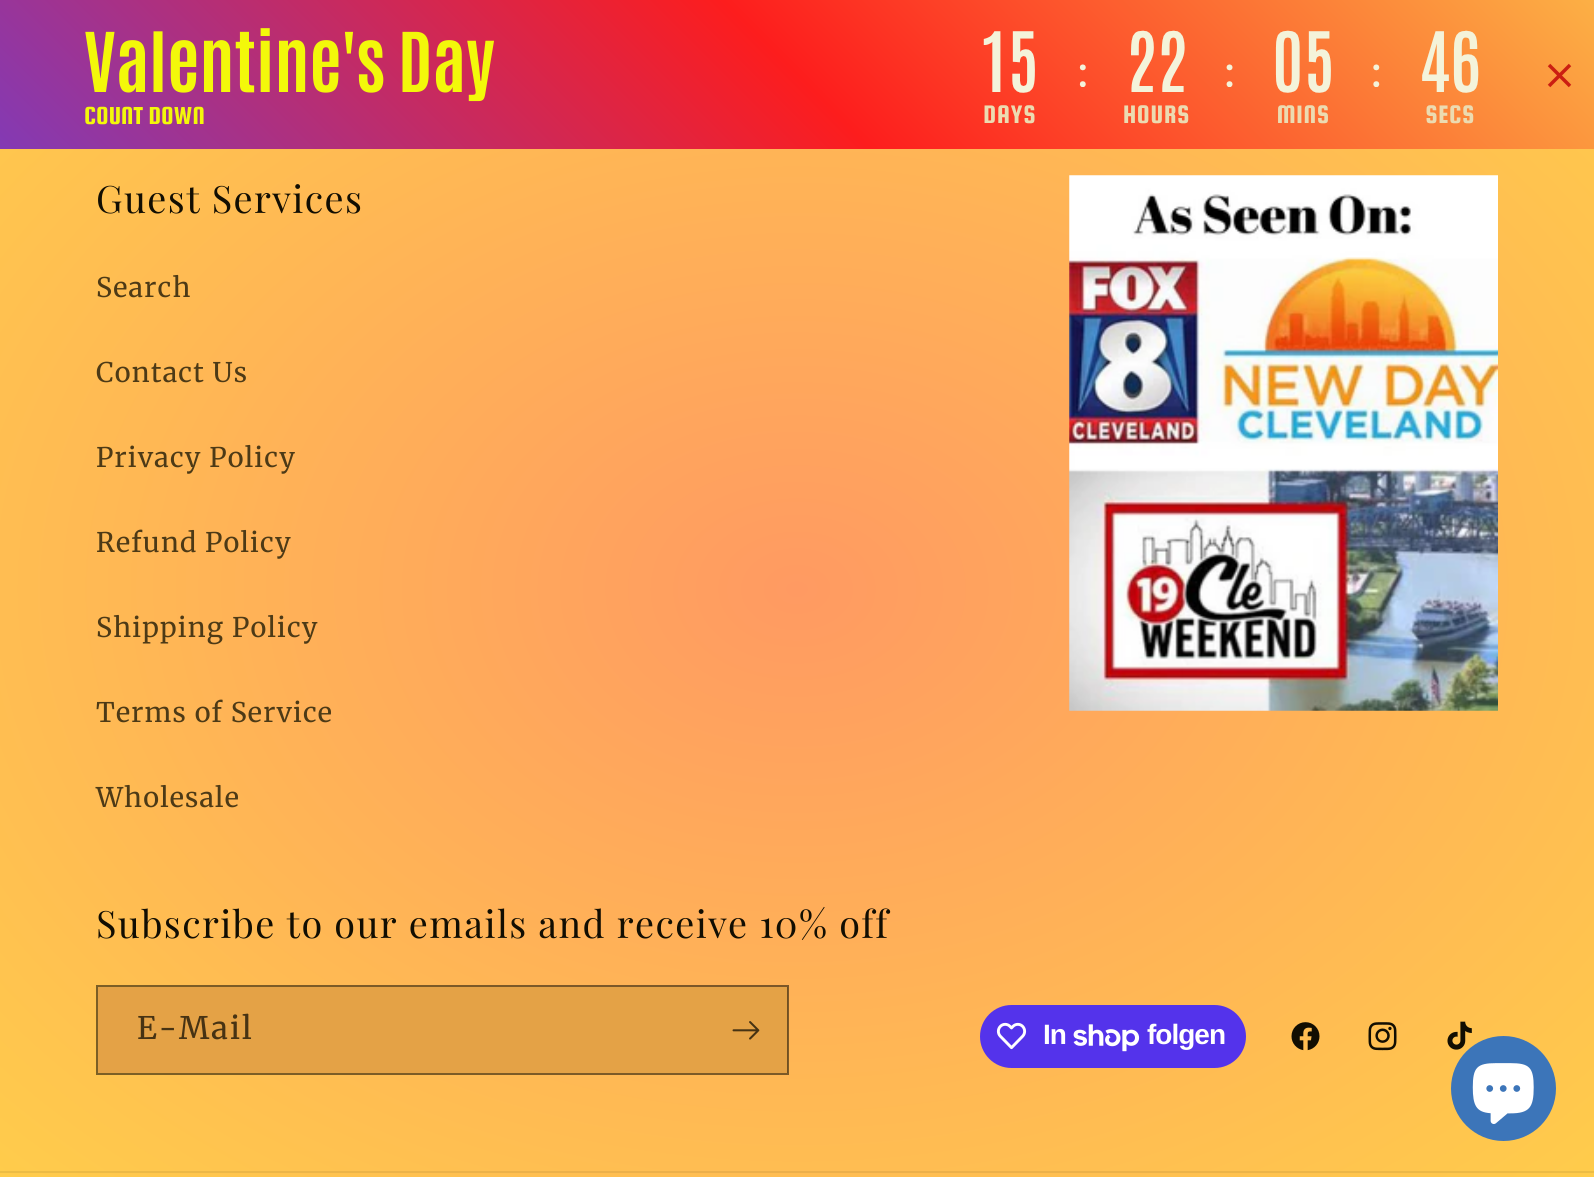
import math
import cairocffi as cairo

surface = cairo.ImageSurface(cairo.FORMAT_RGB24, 1594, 1177)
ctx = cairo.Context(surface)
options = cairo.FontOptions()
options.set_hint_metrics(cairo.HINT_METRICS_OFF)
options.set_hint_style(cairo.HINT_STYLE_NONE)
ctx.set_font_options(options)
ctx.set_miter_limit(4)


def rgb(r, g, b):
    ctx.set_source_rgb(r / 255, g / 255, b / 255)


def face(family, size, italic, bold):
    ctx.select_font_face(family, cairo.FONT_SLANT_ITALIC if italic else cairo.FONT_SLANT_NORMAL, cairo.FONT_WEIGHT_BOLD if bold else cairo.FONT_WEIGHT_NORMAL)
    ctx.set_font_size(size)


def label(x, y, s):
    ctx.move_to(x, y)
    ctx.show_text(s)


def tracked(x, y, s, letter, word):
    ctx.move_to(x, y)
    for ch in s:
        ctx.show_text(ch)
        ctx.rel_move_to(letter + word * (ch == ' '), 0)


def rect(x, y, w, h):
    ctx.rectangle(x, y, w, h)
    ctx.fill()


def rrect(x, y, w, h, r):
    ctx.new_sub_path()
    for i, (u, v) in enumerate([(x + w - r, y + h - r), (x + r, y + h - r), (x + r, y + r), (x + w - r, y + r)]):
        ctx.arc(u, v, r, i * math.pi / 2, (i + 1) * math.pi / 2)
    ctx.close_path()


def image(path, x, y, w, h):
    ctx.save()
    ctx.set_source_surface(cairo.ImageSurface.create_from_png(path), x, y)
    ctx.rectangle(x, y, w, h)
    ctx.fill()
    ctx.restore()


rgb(255, 255, 255)
ctx.paint()
gradient = cairo.LinearGradient(361, 510, 1233, -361)
gradient.add_color_stop_rgba(0, 0.514, 0.227, 0.706, 1)
gradient.add_color_stop_rgba(0.5, 0.992, 0.114, 0.114, 1)
gradient.add_color_stop_rgba(1, 0.988, 0.69, 0.271, 1)
ctx.set_source(gradient)
rect(0, 0, 1594, 149)
face('Antonio', 70, 0, 1)
rgb(243, 248, 10)
label(84, 92, 'Valentine\'s Day')
face('Squada One', 26.25, 0, 0)
label(84, 124, 'COUNT DOWN')
image('image0.png', 983, 30, 496, 94)
ctx.new_path()
ctx.move_to(1570, 65)
ctx.line_to(1549, 86)
ctx.move_to(1570, 86)
ctx.line_to(1549, 65)
rgb(203, 31, 18)
ctx.set_line_width(3.5)
ctx.stroke()
gradient = cairo.RadialGradient(0, 0, 0, 0, 0, 1)
gradient.set_matrix(cairo.Matrix(1 / 1127, 0, 0, 1 / 833, -1 * 797 / 1127, -1 * 589 / 833))
gradient.add_color_stop_rgba(0, 1, 0.604, 0.384, 1)
gradient.add_color_stop_rgba(1, 1, 0.8, 0.294, 1)
ctx.set_source(gradient)
rect(0, 149, 1594, 1028)
gradient = cairo.RadialGradient(0, 0, 0, 0, 0, 1)
gradient.set_matrix(cairo.Matrix(1 / 1127, 0, 0, 1 / 833, -1 * 797 / 1127, -1 * 589 / 833))
gradient.add_color_stop_rgba(0, 0.925, 0.561, 0.353, 1)
gradient.add_color_stop_rgba(1, 0.925, 0.741, 0.271, 1)
ctx.set_source(gradient)
rect(0, 1171, 1594, 2)
face('Playfair Display', 37.8, 0, 0)
rgb(18, 14, 2)
tracked(96, 213, 'Guest Services', 1.4, 0)
face('Merriweather', 27, 0, 0)
rgb(77, 58, 22)
tracked(96, 297, 'Search', 1.2, 0)
tracked(96, 382, 'Contact Us', 1.2, 0)
tracked(96, 467, 'Privacy Policy', 1.2, 0)
tracked(96, 552, 'Refund Policy', 1.2, 0)
tracked(96, 637, 'Shipping Policy', 1.2, 0)
tracked(96, 722, 'Terms of Service', 1.2, 0)
tracked(96, 807, 'Wholesale', 1.2, 0)
image('image1.png', 1069, 175, 429, 536)
face('Playfair Display', 37.8, 0, 0)
rgb(18, 14, 2)
tracked(96, 938, 'Subscribe to our emails and receive 10% off', 1.4, 0)
rgb(228, 162, 70)
rect(98, 987, 690, 86)
ctx.rectangle(97, 986, 691, 88)
ctx.set_source_rgba(0.071, 0.055, 0.008, 0.55)
ctx.set_line_width(2)
ctx.stroke()
face('Merriweather', 31, 0, 0)
rgb(71, 51, 19)
tracked(137, 1039, 'E-Mail', 2, 0)
image('image2.png', 732, 1021, 28, 19)
rgb(84, 51, 235)
rrect(980, 1005, 266, 63, 31.5)
ctx.fill()
image('image3.png', 996, 1022, 31, 28)
face('Liberation Sans', 28, 0, 1)
rgb(255, 255, 255)
tracked(1043, 1044, 'In', -1, 0)
image('image4.png', 1073, 1024, 67, 28)
tracked(1147, 1044, 'folgen', -1, 0)
image('image5.png', 1291, 1022, 29, 29)
image('image6.png', 1368, 1022, 29, 29)
image('image7.png', 1447, 1021, 25, 29)
rgb(60, 117, 185)
ctx.arc(1503.5, 1088.5, 52.5, 0, 2 * math.pi)
ctx.fill()
image('image8.png', 1472, 1063, 62, 61)
surface.write_to_png('render.png')
